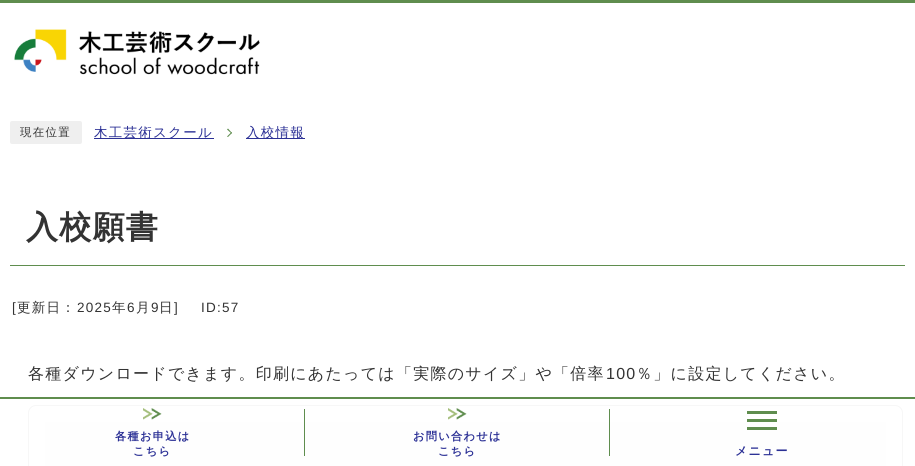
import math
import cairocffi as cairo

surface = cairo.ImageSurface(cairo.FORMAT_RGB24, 915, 466)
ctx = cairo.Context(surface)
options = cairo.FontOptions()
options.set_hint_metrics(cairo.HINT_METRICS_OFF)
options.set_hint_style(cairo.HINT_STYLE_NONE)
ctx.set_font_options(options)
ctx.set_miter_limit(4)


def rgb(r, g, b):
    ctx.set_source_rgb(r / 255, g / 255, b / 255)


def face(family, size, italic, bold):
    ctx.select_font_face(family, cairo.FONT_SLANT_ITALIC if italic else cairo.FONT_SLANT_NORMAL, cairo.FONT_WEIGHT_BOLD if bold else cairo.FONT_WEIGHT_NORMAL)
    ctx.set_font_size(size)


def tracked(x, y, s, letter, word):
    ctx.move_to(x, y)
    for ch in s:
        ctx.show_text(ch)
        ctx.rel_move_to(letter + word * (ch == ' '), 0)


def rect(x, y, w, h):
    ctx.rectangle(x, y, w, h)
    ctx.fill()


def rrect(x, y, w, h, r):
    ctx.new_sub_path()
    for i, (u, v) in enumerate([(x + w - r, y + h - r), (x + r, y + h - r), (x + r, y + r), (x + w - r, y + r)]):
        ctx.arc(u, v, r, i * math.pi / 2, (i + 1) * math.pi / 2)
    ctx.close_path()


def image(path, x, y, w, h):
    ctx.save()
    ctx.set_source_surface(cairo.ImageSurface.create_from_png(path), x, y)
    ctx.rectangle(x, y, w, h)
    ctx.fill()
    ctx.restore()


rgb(255, 255, 255)
ctx.paint()
rgb(239, 239, 239)
rrect(10, 121, 72, 23, 2)
ctx.fill()
face('WenQuanYi Zen Hei Medium', 11.5, 0, 0)
rgb(51, 51, 51)
tracked(20, 136, '現在位置', 1.25, 0)
rgb(43, 48, 149)
rect(94, 138, 120, 1)
face('WenQuanYi Zen Hei Medium', 13.5, 0, 0)
tracked(94, 137, '木工芸術スクール', 1.25, 0)
rgb(95, 141, 78)
ctx.new_path()
ctx.move_to(227, 129.5)
ctx.line_to(228, 128.5)
ctx.line_to(232, 133)
ctx.line_to(231.5, 133.5)
ctx.close_path()
ctx.fill()
ctx.new_path()
ctx.move_to(227, 136.5)
ctx.line_to(231.5, 132)
ctx.line_to(232, 133)
ctx.line_to(228, 137)
ctx.close_path()
ctx.fill()
rgb(43, 48, 149)
rect(246, 138, 59, 1)
tracked(246, 137, '入校情報', 1.25, 0)
rgb(95, 141, 78)
rect(10, 265, 895, 1)
face('WenQuanYi Zen Hei', 32, 0, 1)
rgb(51, 51, 51)
tracked(26, 238, '入校願書', 1.25, 0)
face('Liberation Sans', 13.5, 0, 0)
tracked(12, 312, '[', 1.25, 0)
face('WenQuanYi Zen Hei Medium', 13.5, 0, 0)
tracked(17, 312, '更新日：', 1.25, 0)
face('Liberation Sans', 13.5, 0, 0)
tracked(77, 312, '2025', 1.25, 0)
face('WenQuanYi Zen Hei Medium', 13.5, 0, 0)
tracked(112, 312, '年', 1.25, 0)
face('Liberation Sans', 13.5, 0, 0)
tracked(127, 312, '6', 1.25, 0)
face('WenQuanYi Zen Hei Medium', 13.5, 0, 0)
tracked(136, 312, '月', 1.25, 0)
face('Liberation Sans', 13.5, 0, 0)
tracked(151, 312, '9', 1.25, 0)
face('WenQuanYi Zen Hei Medium', 13.5, 0, 0)
tracked(159, 312, '日', 1.25, 0)
face('Liberation Sans', 13.5, 0, 0)
tracked(174, 312, ']', 1.25, 0)
tracked(201, 312, 'ID:57', 1.25, 0)
face('WenQuanYi Zen Hei Medium', 16, 0, 0)
tracked(28, 379, '各種ダウンロードできます。印刷にあたっては「実際のサイズ」や「倍率', 1.25, 0)
face('Liberation Sans', 16, 0, 0)
tracked(606, 379, '100', 1.25, 0)
face('WenQuanYi Zen Hei Medium', 16, 0, 0)
tracked(636, 379, '％」に設定してください。', 1.25, 0)
rrect(28.5, 405.5, 874, 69, 7.5)
rgb(112, 112, 112)
ctx.set_line_width(1)
ctx.stroke()
rgb(242, 242, 242)
rect(45, 422, 841, 44)
rgb(95, 141, 78)
rect(0, 0, 915, 3)
image('image0.png', 14, 29, 246, 46)
ctx.set_source_rgba(1, 1, 1, 0.94)
rect(28, 405, 277, 61)
rgb(95, 141, 78)
rect(0, 397, 915, 2)
image('image1.png', 143, 408, 19, 12)
face('WenQuanYi Zen Hei', 11.25, 0, 1)
rgb(43, 48, 149)
tracked(115, 440, '各種お申込は', 1.25, 0)
tracked(133, 455, 'こちら', 1.25, 0)
rgb(95, 141, 78)
rect(304, 409, 1, 47)
ctx.set_source_rgba(1, 1, 1, 0.94)
rect(305, 405, 305, 61)
image('image2.png', 448, 408, 19, 12)
rgb(43, 48, 149)
tracked(413, 440, 'お問い合わせは', 1.25, 0)
tracked(438, 455, 'こちら', 1.25, 0)
rgb(95, 141, 78)
rect(609, 409, 1, 47)
ctx.set_source_rgba(1, 1, 1, 0.94)
rect(610, 405, 293, 61)
rgb(95, 141, 78)
rect(747, 427, 30, 3)
rect(747, 411, 30, 3)
rect(747, 419, 30, 3)
face('WenQuanYi Zen Hei', 12, 0, 1)
rgb(43, 48, 149)
tracked(735, 455, 'メニュー', 1.25, 0)
surface.write_to_png('render.png')
